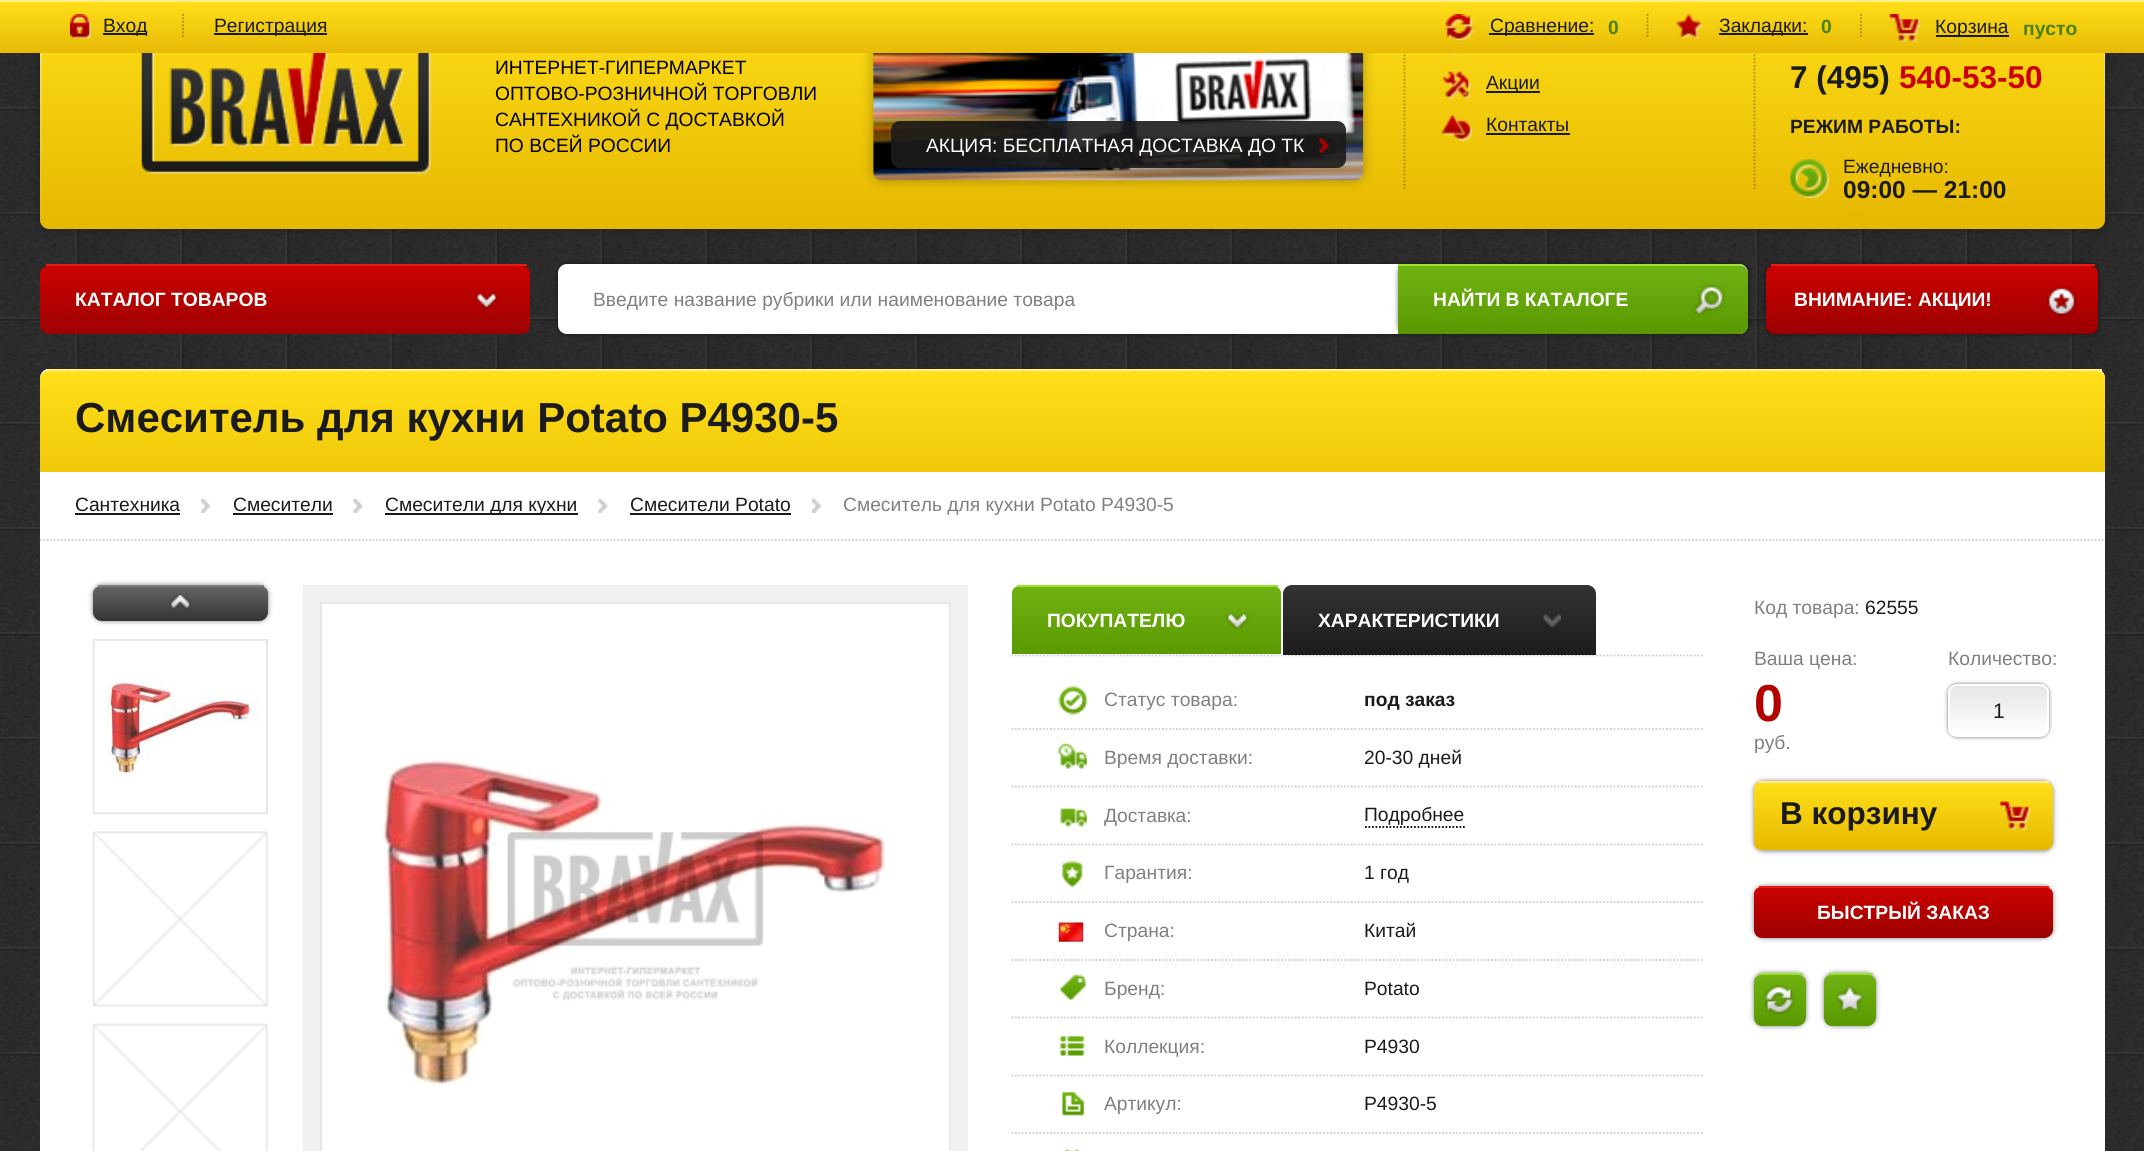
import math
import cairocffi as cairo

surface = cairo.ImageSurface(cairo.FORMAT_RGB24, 2144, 1151)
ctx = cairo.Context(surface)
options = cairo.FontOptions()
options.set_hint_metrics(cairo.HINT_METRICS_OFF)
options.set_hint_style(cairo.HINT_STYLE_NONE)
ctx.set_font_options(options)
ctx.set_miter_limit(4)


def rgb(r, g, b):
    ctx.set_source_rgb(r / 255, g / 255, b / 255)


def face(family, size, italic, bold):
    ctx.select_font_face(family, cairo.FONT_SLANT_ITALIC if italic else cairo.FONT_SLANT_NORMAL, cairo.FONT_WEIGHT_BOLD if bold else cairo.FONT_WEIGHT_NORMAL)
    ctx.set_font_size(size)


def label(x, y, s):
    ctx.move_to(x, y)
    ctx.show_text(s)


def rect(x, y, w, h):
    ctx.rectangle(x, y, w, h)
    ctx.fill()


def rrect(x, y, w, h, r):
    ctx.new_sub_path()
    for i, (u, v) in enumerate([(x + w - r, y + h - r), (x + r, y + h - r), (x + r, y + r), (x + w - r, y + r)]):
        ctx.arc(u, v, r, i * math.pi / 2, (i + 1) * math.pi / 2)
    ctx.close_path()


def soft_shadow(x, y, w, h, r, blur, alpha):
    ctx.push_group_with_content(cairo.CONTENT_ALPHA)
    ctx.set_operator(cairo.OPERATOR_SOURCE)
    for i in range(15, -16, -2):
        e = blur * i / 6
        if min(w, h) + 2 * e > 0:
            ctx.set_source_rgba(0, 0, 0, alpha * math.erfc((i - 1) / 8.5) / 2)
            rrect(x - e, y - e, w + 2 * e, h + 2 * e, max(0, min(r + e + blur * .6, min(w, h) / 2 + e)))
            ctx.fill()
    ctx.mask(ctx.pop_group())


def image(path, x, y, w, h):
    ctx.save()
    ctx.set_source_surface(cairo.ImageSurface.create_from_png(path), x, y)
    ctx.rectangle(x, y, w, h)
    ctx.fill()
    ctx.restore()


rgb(255, 255, 255)
ctx.paint()
image('image0.png', 0, 53, 2144, 1098)
rgb(0, 0, 0)
soft_shadow(40, -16, 2065, 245, 9, 6, 0.3)
gradient = cairo.LinearGradient(1073, -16, 1073, 229)
gradient.add_color_stop_rgba(0, 1, 0.941, 0.549, 1)
gradient.add_color_stop_rgba(1, 0.902, 0.722, 0.004, 1)
ctx.set_source(gradient)
rrect(40, -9, 2065, 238, 9)
ctx.fill()
gradient = cairo.LinearGradient(1073, -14, 1073, 228)
gradient.add_color_stop_rgba(0, 1, 0.878, 0.098, 1)
gradient.add_color_stop_rgba(1, 0.902, 0.722, 0.004, 1)
ctx.set_source(gradient)
rrect(42, -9, 2062, 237, 9)
ctx.fill()
ctx.new_path()
ctx.move_to(1404.5, 23)
ctx.line_to(1404.5, 189)
ctx.set_source_rgba(0, 0, 0, 0.3)
ctx.set_line_width(1.8)
ctx.set_dash([1.75, 1.75])
ctx.stroke()
ctx.new_path()
ctx.move_to(1754.5, 23)
ctx.line_to(1754.5, 189)
ctx.stroke()
rgb(0, 0, 0)
soft_shadow(873, 32, 490, 148, 9, 6, 0.3)
gradient = cairo.LinearGradient(1073, 1.7, 1073, 53)
gradient.add_color_stop_rgba(0, 1, 0.875, 0.098, 1)
gradient.add_color_stop_rgba(1, 0.906, 0.729, 0.024, 1)
ctx.set_source(gradient)
rect(0, 2, 2144, 51)
rgb(255, 239, 138)
rect(0, 0, 2144, 2)
image('image1.png', 70, 14, 21, 25)
rgb(26, 26, 26)
rect(103, 33, 44, 2)
face('Liberation Sans', 19.25, 0, 0)
rgb(27, 27, 27)
label(103, 32, 'Вход')
ctx.new_path()
ctx.move_to(183, 14)
ctx.line_to(183, 37)
rgb(165, 135, 5)
ctx.stroke()
rgb(26, 26, 26)
rect(214, 33, 113, 2)
rgb(27, 27, 27)
label(214, 32, 'Регистрация')
image('image2.png', 1445, 14, 29, 27)
rgb(26, 26, 26)
rect(1489, 33, 105, 2)
rgb(27, 27, 27)
label(1490, 32, 'Сравнение:')
face('Liberation Sans', 19.25, 0, 1)
rgb(74, 128, 0)
label(1608, 34, '0')
ctx.new_path()
ctx.move_to(1861, 14)
ctx.line_to(1861, 37)
rgb(165, 135, 5)
ctx.stroke()
ctx.new_path()
ctx.move_to(1647.5, 14)
ctx.line_to(1647.5, 37)
ctx.stroke()
image('image3.png', 1676, 14, 28, 25)
rgb(26, 26, 26)
rect(1719, 33, 89, 2)
face('Liberation Sans', 19.25, 0, 0)
rgb(27, 27, 27)
label(1719, 32, 'Закладки:')
face('Liberation Sans', 19.25, 0, 1)
rgb(74, 128, 0)
label(1821, 33, '0')
image('image4.png', 1889, 14, 32, 28)
rgb(26, 26, 26)
rect(1936, 35, 73, 2)
face('Liberation Sans', 19.25, 0, 0)
rgb(27, 27, 27)
label(1935, 33, 'Корзина')
face('Liberation Sans', 19.25, 0, 1)
rgb(74, 128, 0)
label(2023, 35, 'пусто')
image('image5.png', 141, 53, 290, 121)
face('Liberation Sans', 19.25, 0, 0)
rgb(0, 0, 0)
label(495, 74, 'ИНТЕРНЕТ-ГИПЕРМАРКЕТ')
label(495, 100, 'ОПТОВО-РОЗНИЧНОЙ ТОРГОВЛИ')
label(495, 126, 'САНТЕХНИКОЙ С ДОСТАВКОЙ')
label(495, 152, 'ПО ВСЕЙ РОССИИ')
image('image6.png', 1449, 53, 20, 2)
image('image7.png', 1442, 70, 30, 30)
rgb(26, 26, 26)
rect(1486, 91, 54, 2)
rgb(27, 27, 27)
label(1486, 89, 'Акции')
image('image8.png', 1441, 114, 31, 27)
label(1486, 131, 'Контакты')
rgb(26, 26, 26)
rect(1486, 133, 84, 2)
face('Liberation Sans', 31.5, 0, 1)
rgb(27, 27, 27)
label(1790, 88, '7 (495)')
rgb(204, 0, 0)
label(1899, 88, '540-53-50')
face('Liberation Sans', 19.25, 0, 1)
rgb(27, 27, 27)
label(1790, 133, 'РЕЖИМ РАБОТЫ:')
image('image9.png', 1790, 159, 39, 39)
face('Liberation Sans', 19.25, 0, 0)
label(1843, 173, 'Ежедневно:')
face('Liberation Sans', 24.5, 0, 1)
label(1843, 198, '09:00 — 21:00')
image('image10.png', 873, 53, 491, 128)
ctx.set_source_rgba(0.106, 0.106, 0.106, 0.9)
rrect(891, 121, 455, 47, 9)
ctx.fill()
face('Liberation Sans', 19.25, 0, 0)
rgb(255, 255, 255)
label(926, 152, 'АКЦИЯ: БЕСПЛАТНАЯ ДОСТАВКА ДО ТК')
image('image11.png', 1319, 138, 10, 15)
gradient = cairo.LinearGradient(285, 266, 285, 334)
gradient.add_color_stop_rgba(0, 0.796, 0.008, 0, 1)
gradient.add_color_stop_rgba(1, 0.62, 0.004, 0.004, 1)
ctx.set_source(gradient)
ctx.new_path()
ctx.move_to(49, 266)
ctx.line_to(522, 266)
ctx.curve_to(526, 266, 530, 269, 530, 273)
ctx.line_to(530, 326)
ctx.curve_to(530, 330, 526, 334, 522, 334)
ctx.line_to(49, 334)
ctx.curve_to(44, 334, 40, 330, 40, 326)
ctx.line_to(40, 273)
ctx.curve_to(40, 269, 44, 266, 49, 266)
ctx.close_path()
ctx.fill()
rgb(229, 28, 26)
rect(46, 264, 481, 2)
face('Liberation Sans', 19.25, 0, 1)
rgb(255, 255, 255)
label(75, 306, 'КАТАЛОГ ТОВАРОВ')
image('image12.png', 474, 292, 25, 18)
rgb(0, 0, 0)
soft_shadow(558, 264, 1190, 70, 9, 2.5, 0.5)
rgb(255, 255, 255)
rrect(558, 264, 1190, 70, 9)
ctx.fill()
ctx.save()
rrect(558, 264, 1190, 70, 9)
ctx.clip()
ctx.set_fill_rule(cairo.FILL_RULE_EVEN_ODD)
ctx.new_path()
ctx.move_to(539, 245)
ctx.line_to(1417, 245)
ctx.line_to(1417, 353)
ctx.line_to(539, 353)
ctx.close_path()
ctx.move_to(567, 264)
ctx.line_to(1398, 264)
ctx.line_to(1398, 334)
ctx.line_to(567, 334)
ctx.curve_to(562, 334, 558, 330, 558, 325)
ctx.line_to(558, 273)
ctx.curve_to(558, 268, 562, 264, 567, 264)
ctx.close_path()
ctx.clip()
rgb(0, 0, 0)
soft_shadow(558, 264, 840, 70, 9, 6, 0.3)
ctx.restore()
face('Liberation Sans', 19.25, 0, 0)
rgb(128, 128, 128)
label(593, 306, 'Введите название рубрики или наименование товара')
ctx.save()
rrect(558, 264, 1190, 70, 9)
ctx.clip()
rgb(0, 0, 0)
soft_shadow(1398, 264, 350, 70, 9, 2.5, 0.5)
ctx.restore()
gradient = cairo.LinearGradient(1573, 266, 1573, 334)
gradient.add_color_stop_rgba(0, 0.439, 0.698, 0.071, 1)
gradient.add_color_stop_rgba(1, 0.349, 0.6, 0, 1)
ctx.set_source(gradient)
ctx.new_path()
ctx.move_to(1398, 266)
ctx.line_to(1398, 334)
ctx.line_to(1739, 334)
ctx.curve_to(1744, 334, 1748, 330, 1748, 325)
ctx.line_to(1748, 273)
ctx.curve_to(1748, 269, 1744, 266, 1740, 266)
ctx.close_path()
ctx.fill()
ctx.save()
rrect(558, 264, 1190, 70, 9)
ctx.clip()
rgb(152, 228, 45)
rect(1398, 264, 347, 2)
ctx.restore()
face('Liberation Sans', 19.25, 0, 1)
rgb(255, 255, 255)
label(1433, 306, 'НАЙТИ В КАТАЛОГЕ')
image('image13.png', 1694, 284, 31, 31)
rgb(0, 0, 0)
soft_shadow(1766, 264, 332, 70, 9, 2.5, 0.5)
gradient = cairo.LinearGradient(1932, 266, 1932, 334)
gradient.add_color_stop_rgba(0, 0.8, 0.008, 0, 1)
gradient.add_color_stop_rgba(1, 0.608, 0, 0, 1)
ctx.set_source(gradient)
ctx.new_path()
ctx.move_to(1774, 266)
ctx.line_to(2090, 266)
ctx.curve_to(2094, 266, 2098, 269, 2098, 273)
ctx.line_to(2098, 326)
ctx.curve_to(2098, 330, 2094, 334, 2090, 334)
ctx.line_to(1774, 334)
ctx.curve_to(1770, 334, 1766, 330, 1766, 326)
ctx.line_to(1766, 273)
ctx.curve_to(1766, 269, 1770, 266, 1774, 266)
ctx.close_path()
ctx.fill()
rgb(229, 28, 26)
rect(1771, 264, 324, 2)
rgb(255, 255, 255)
label(1794, 306, 'ВНИМАНИЕ: АКЦИИ!')
image('image14.png', 2046, 285, 31, 32)
rrect(40, 369, 2065, 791, 9)
ctx.fill()
gradient = cairo.LinearGradient(1073, 371, 1073, 473)
gradient.add_color_stop_rgba(0, 1, 0.878, 0.098, 1)
gradient.add_color_stop_rgba(1, 0.941, 0.784, 0.039, 1)
ctx.set_source(gradient)
ctx.new_path()
ctx.move_to(49, 371)
ctx.line_to(2096, 371)
ctx.curve_to(2101, 371, 2105, 374, 2105, 378)
ctx.line_to(2105, 472)
ctx.line_to(40, 472)
ctx.line_to(40, 378)
ctx.curve_to(40, 374, 44, 371, 49, 371)
ctx.close_path()
ctx.fill()
rgb(255, 240, 139)
rect(46, 369, 2056, 2)
face('Liberation Sans', 42, 0, 1)
rgb(27, 27, 27)
label(75, 432, 'Смеситель для кухни Potato P4930-5')
ctx.new_path()
ctx.move_to(40, 540)
ctx.line_to(2105, 540)
rgb(204, 204, 204)
ctx.stroke()
face('Liberation Sans', 19.25, 0, 0)
rgb(27, 27, 27)
label(75, 511, 'Сантехника')
rgb(26, 26, 26)
rect(75, 513, 105, 2)
image('image15.png', 201, 499, 9, 14)
rgb(27, 27, 27)
label(233, 511, 'Смесители')
rgb(26, 26, 26)
rect(233, 513, 100, 2)
image('image16.png', 353, 499, 10, 14)
rect(385, 513, 193, 2)
rgb(27, 27, 27)
label(385, 511, 'Смесители для кухни')
image('image17.png', 598, 499, 10, 14)
label(630, 511, 'Смесители Potato')
rgb(26, 26, 26)
rect(630, 513, 161, 2)
image('image18.png', 812, 499, 9, 14)
rgb(128, 128, 128)
label(843, 511, 'Смеситель для кухни Potato P4930-5')
rgb(0, 0, 0)
soft_shadow(93, 585, 175, 36, 9, 2.5, 0.5)
gradient = cairo.LinearGradient(180, 586, 180, 621)
gradient.add_color_stop_rgba(0, 0.4, 0.4, 0.4, 1)
gradient.add_color_stop_rgba(1, 0.2, 0.2, 0.2, 1)
ctx.set_source(gradient)
ctx.new_path()
ctx.move_to(102, 586)
ctx.line_to(259, 586)
ctx.curve_to(264, 586, 268, 589, 268, 593)
ctx.line_to(268, 612)
ctx.curve_to(268, 617, 264, 621, 259, 621)
ctx.line_to(102, 621)
ctx.curve_to(97, 621, 93, 617, 93, 612)
ctx.line_to(93, 593)
ctx.curve_to(93, 589, 97, 586, 102, 586)
ctx.close_path()
ctx.fill()
rgb(125, 125, 125)
rect(98, 585, 166, 2)
image('image19.png', 169, 593, 22, 16)
ctx.rectangle(312, 594, 647, 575)
rgb(240, 240, 240)
ctx.set_line_width(18)
ctx.set_dash([])
ctx.stroke()
ctx.rectangle(321, 603, 628, 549)
rgb(230, 230, 230)
ctx.set_line_width(2)
ctx.stroke()
rgb(255, 255, 255)
rect(948, 604, 1, 547)
image('image20.png', 383, 759, 503, 327)
ctx.new_path()
ctx.move_to(1011.5, 655.5)
ctx.line_to(1703, 655.5)
rgb(204, 204, 204)
ctx.set_line_width(1.8)
ctx.set_dash([1.75, 1.75])
ctx.stroke()
gradient = cairo.LinearGradient(1146, 586, 1146, 655)
gradient.add_color_stop_rgba(0, 0.439, 0.698, 0.071, 1)
gradient.add_color_stop_rgba(1, 0.349, 0.6, 0, 1)
ctx.set_source(gradient)
ctx.new_path()
ctx.move_to(1020, 586)
ctx.line_to(1272, 586)
ctx.curve_to(1277, 586, 1281, 589, 1281, 593)
ctx.line_to(1281, 654)
ctx.line_to(1012, 654)
ctx.line_to(1012, 593)
ctx.curve_to(1012, 589, 1015, 586, 1020, 586)
ctx.close_path()
ctx.fill()
rgb(152, 228, 45)
rect(1017, 585, 261, 2)
face('Liberation Sans', 19.25, 0, 1)
rgb(255, 255, 255)
label(1047, 627, 'ПОКУПАТЕЛЮ')
image('image21.png', 1225, 612, 24, 18)
gradient = cairo.LinearGradient(1439, 585, 1439, 655)
gradient.add_color_stop_rgba(0, 0.2, 0.2, 0.2, 1)
gradient.add_color_stop_rgba(1, 0.11, 0.11, 0.11, 1)
ctx.set_source(gradient)
ctx.new_path()
ctx.move_to(1292, 585)
ctx.line_to(1587, 585)
ctx.curve_to(1592, 585, 1596, 589, 1596, 594)
ctx.line_to(1596, 655)
ctx.line_to(1283, 655)
ctx.line_to(1283, 594)
ctx.curve_to(1283, 589, 1287, 585, 1292, 585)
ctx.close_path()
ctx.fill()
rgb(255, 255, 255)
label(1318, 627, 'ХАРАКТЕРИСТИКИ')
image('image22.png', 1543, 614, 18, 13)
ctx.new_path()
ctx.move_to(1011.5, 729)
ctx.line_to(1703, 729)
rgb(204, 204, 204)
ctx.stroke()
image('image23.png', 1058, 685, 29, 30)
face('Liberation Sans', 19.25, 0, 0)
rgb(128, 128, 128)
label(1104, 706, 'Статус товара:')
face('Liberation Sans', 19.25, 0, 1)
rgb(27, 27, 27)
label(1364, 706, 'под заказ')
ctx.new_path()
ctx.move_to(1011.5, 786.5)
ctx.line_to(1703, 786.5)
rgb(204, 204, 204)
ctx.stroke()
image('image24.png', 1058, 743, 29, 26)
face('Liberation Sans', 19.25, 0, 0)
rgb(128, 128, 128)
label(1104, 764, 'Время доставки:')
rgb(27, 27, 27)
label(1364, 764, '20-30 дней')
ctx.new_path()
ctx.move_to(1011.5, 844.5)
ctx.line_to(1703, 844.5)
rgb(204, 204, 204)
ctx.stroke()
image('image25.png', 1060, 808, 27, 19)
rgb(128, 128, 128)
label(1104, 822, 'Доставка:')
ctx.new_path()
ctx.move_to(1365, 827)
ctx.line_to(1465, 827)
rgb(0, 0, 0)
ctx.stroke()
rgb(27, 27, 27)
label(1364, 821, 'Подробнее')
ctx.new_path()
ctx.move_to(1011.5, 902)
ctx.line_to(1703, 902)
rgb(204, 204, 204)
ctx.stroke()
image('image26.png', 1062, 860, 21, 28)
rgb(128, 128, 128)
label(1104, 879, 'Гарантия:')
rgb(27, 27, 27)
label(1364, 879, '1 год')
ctx.new_path()
ctx.move_to(1011.5, 960)
ctx.line_to(1703, 960)
rgb(204, 204, 204)
ctx.stroke()
image('image27.png', 1058, 922, 26, 20)
rgb(128, 128, 128)
label(1104, 937, 'Страна:')
rgb(27, 27, 27)
label(1364, 937, 'Китай')
ctx.new_path()
ctx.move_to(1011.5, 1017.5)
ctx.line_to(1703, 1017.5)
rgb(204, 204, 204)
ctx.stroke()
image('image28.png', 1060, 974, 26, 26)
rgb(128, 128, 128)
label(1104, 995, 'Бренд:')
rgb(27, 27, 27)
label(1364, 995, 'Potato')
ctx.new_path()
ctx.move_to(1011.5, 1075.5)
ctx.line_to(1703, 1075.5)
rgb(204, 204, 204)
ctx.stroke()
image('image29.png', 1060, 1035, 25, 21)
rgb(128, 128, 128)
label(1104, 1053, 'Коллекция:')
rgb(27, 27, 27)
label(1364, 1053, 'P4930')
ctx.new_path()
ctx.move_to(1011.5, 1133)
ctx.line_to(1703, 1133)
rgb(204, 204, 204)
ctx.stroke()
image('image30.png', 1062, 1091, 23, 25)
rgb(128, 128, 128)
label(1104, 1110, 'Артикул:')
rgb(27, 27, 27)
label(1364, 1110, 'P4930-5')
image('image31.png', 1064, 1148, 16, 3)
rgb(128, 128, 128)
label(1754, 614, 'Код товара:')
rgb(27, 27, 27)
label(1865, 614, '62555')
rgb(128, 128, 128)
label(1754, 665, 'Ваша цена:')
face('Liberation Sans', 52, 0, 1)
rgb(179, 1, 0)
label(1754, 721, '0')
face('Liberation Sans', 19.25, 0, 0)
rgb(128, 128, 128)
label(1754, 749, 'руб.')
label(1948, 665, 'Количество:')
rgb(112, 112, 112)
soft_shadow(1948, 684, 101, 53, 9, 2, 1)
ctx.save()
rrect(1948, 684, 101, 53, 9)
ctx.clip()
gradient = cairo.LinearGradient(1999, 686, 1999, 735)
gradient.add_color_stop_rgba(0, 0.902, 0.902, 0.906, 1)
gradient.add_color_stop_rgba(1, 1, 1, 1, 1)
ctx.set_source(gradient)
rect(1948, 686, 101, 49)
ctx.restore()
rrect(1949, 685, 99, 51, 8)
rgb(255, 255, 255)
ctx.set_line_width(2)
ctx.set_dash([])
ctx.stroke()
face('Liberation Sans', 21, 0, 0)
rgb(27, 27, 27)
label(1993, 718, '1')
rgb(0, 0, 0)
soft_shadow(1754, 781, 299, 70, 9, 2.5, 0.5)
gradient = cairo.LinearGradient(1903, 782, 1903, 851)
gradient.add_color_stop_rgba(0, 1, 0.878, 0.098, 1)
gradient.add_color_stop_rgba(1, 0.902, 0.722, 0.004, 1)
ctx.set_source(gradient)
ctx.new_path()
ctx.move_to(1762, 782)
ctx.line_to(2044, 782)
ctx.curve_to(2049, 782, 2053, 785, 2053, 789)
ctx.line_to(2053, 842)
ctx.curve_to(2053, 847, 2049, 850, 2044, 850)
ctx.line_to(1762, 850)
ctx.curve_to(1757, 850, 1754, 847, 1754, 842)
ctx.line_to(1754, 789)
ctx.curve_to(1754, 785, 1757, 782, 1762, 782)
ctx.close_path()
ctx.fill()
rgb(255, 239, 138)
rect(1759, 781, 290, 2)
face('Liberation Sans', 31.5, 0, 1)
rgb(27, 27, 27)
label(1780, 824, 'В корзину')
image('image32.png', 1999, 801, 32, 30)
rgb(0, 0, 0)
soft_shadow(1754, 886, 299, 52, 9, 2.5, 0.5)
gradient = cairo.LinearGradient(1903, 887, 1903, 938)
gradient.add_color_stop_rgba(0, 0.8, 0.008, 0, 1)
gradient.add_color_stop_rgba(1, 0.608, 0, 0, 1)
ctx.set_source(gradient)
ctx.new_path()
ctx.move_to(1762, 887)
ctx.line_to(2044, 887)
ctx.curve_to(2049, 887, 2053, 890, 2053, 894)
ctx.line_to(2053, 929)
ctx.curve_to(2053, 934, 2049, 938, 2044, 938)
ctx.line_to(1762, 938)
ctx.curve_to(1757, 938, 1754, 934, 1754, 929)
ctx.line_to(1754, 894)
ctx.curve_to(1754, 890, 1757, 887, 1762, 887)
ctx.close_path()
ctx.fill()
rgb(229, 28, 26)
rect(1759, 886, 290, 2)
face('Liberation Sans', 19.25, 0, 1)
rgb(255, 255, 255)
label(1817, 919, 'БЫСТРЫЙ ЗАКАЗ')
rgb(0, 0, 0)
soft_shadow(1754, 973, 52, 53, 9, 2.5, 0.5)
gradient = cairo.LinearGradient(1780, 975, 1780, 1026)
gradient.add_color_stop_rgba(0, 0.439, 0.698, 0.071, 1)
gradient.add_color_stop_rgba(1, 0.349, 0.6, 0, 1)
ctx.set_source(gradient)
ctx.new_path()
ctx.move_to(1762, 975)
ctx.line_to(1797, 975)
ctx.curve_to(1802, 975, 1806, 978, 1806, 982)
ctx.line_to(1806, 1017)
ctx.curve_to(1806, 1022, 1802, 1026, 1797, 1026)
ctx.line_to(1762, 1026)
ctx.curve_to(1757, 1026, 1754, 1022, 1754, 1017)
ctx.line_to(1754, 982)
ctx.curve_to(1754, 978, 1757, 975, 1762, 975)
ctx.close_path()
ctx.fill()
rgb(152, 228, 45)
rect(1759, 973, 44, 2)
image('image33.png', 1763, 984, 32, 31)
rgb(0, 0, 0)
soft_shadow(1824, 973, 52, 53, 9, 2.5, 0.5)
gradient = cairo.LinearGradient(1850, 975, 1850, 1026)
gradient.add_color_stop_rgba(0, 0.439, 0.698, 0.071, 1)
gradient.add_color_stop_rgba(1, 0.349, 0.6, 0, 1)
ctx.set_source(gradient)
ctx.new_path()
ctx.move_to(1832, 975)
ctx.line_to(1867, 975)
ctx.curve_to(1872, 975, 1876, 978, 1876, 982)
ctx.line_to(1876, 1017)
ctx.curve_to(1876, 1022, 1872, 1026, 1867, 1026)
ctx.line_to(1832, 1026)
ctx.curve_to(1827, 1026, 1824, 1022, 1824, 1017)
ctx.line_to(1824, 982)
ctx.curve_to(1824, 978, 1827, 975, 1832, 975)
ctx.close_path()
ctx.fill()
rgb(152, 228, 45)
rect(1829, 973, 44, 2)
image('image34.png', 1836, 985, 28, 27)
image('image35.png', 92, 639, 176, 512)
ctx.rectangle(94, 640, 173, 173)
rgb(230, 230, 230)
ctx.stroke()
image('image36.png', 94, 640, 172, 173)
surface.write_to_png('render.png')
